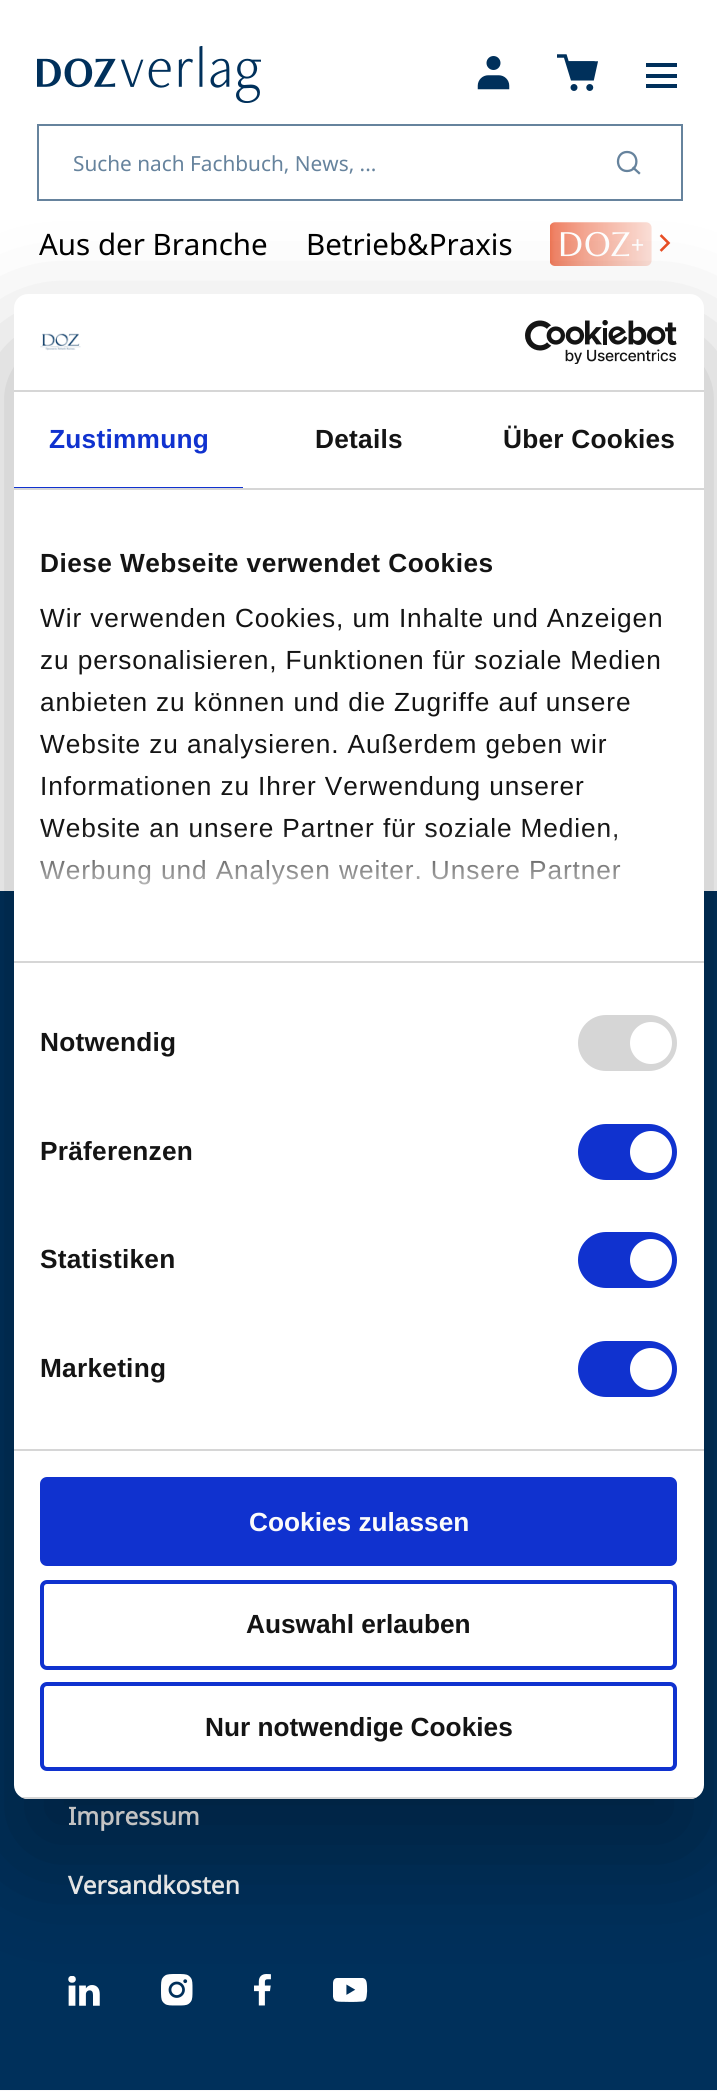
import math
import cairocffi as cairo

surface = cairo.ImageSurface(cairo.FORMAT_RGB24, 717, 2091)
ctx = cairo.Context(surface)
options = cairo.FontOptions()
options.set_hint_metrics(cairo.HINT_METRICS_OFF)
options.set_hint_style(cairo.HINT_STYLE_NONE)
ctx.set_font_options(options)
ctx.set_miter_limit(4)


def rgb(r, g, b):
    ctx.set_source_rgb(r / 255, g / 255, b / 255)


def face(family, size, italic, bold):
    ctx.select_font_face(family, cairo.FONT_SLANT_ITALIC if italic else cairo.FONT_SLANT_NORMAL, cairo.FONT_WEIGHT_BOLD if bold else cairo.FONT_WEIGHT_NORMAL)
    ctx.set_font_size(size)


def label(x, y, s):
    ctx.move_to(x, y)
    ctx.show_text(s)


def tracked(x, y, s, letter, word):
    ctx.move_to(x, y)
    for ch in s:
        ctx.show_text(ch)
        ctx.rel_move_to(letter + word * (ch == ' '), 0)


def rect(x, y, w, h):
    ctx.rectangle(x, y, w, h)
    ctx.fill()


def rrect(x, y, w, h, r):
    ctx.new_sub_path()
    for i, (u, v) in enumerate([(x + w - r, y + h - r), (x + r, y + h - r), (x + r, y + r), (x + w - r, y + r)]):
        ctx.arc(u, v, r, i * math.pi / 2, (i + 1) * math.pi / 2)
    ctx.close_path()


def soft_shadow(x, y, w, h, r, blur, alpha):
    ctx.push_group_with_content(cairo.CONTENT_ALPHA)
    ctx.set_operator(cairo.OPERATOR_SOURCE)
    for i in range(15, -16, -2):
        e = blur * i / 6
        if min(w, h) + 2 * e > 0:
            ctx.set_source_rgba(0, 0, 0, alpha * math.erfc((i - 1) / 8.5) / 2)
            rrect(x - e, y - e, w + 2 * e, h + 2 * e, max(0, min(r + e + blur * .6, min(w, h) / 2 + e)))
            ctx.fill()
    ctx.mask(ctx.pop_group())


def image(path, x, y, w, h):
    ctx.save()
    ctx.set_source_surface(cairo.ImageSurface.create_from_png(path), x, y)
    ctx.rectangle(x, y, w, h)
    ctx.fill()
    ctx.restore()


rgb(247, 247, 249)
ctx.paint()
rgb(255, 255, 255)
rect(0, 0, 717, 891)
image('image0.png', 37, 46, 224, 57)
image('image1.png', 477, 56, 33, 34)
image('image2.png', 557, 54, 41, 37)
rgb(0, 48, 91)
rect(646, 63, 31, 4)
rect(646, 74, 31, 4)
rect(646, 84, 31, 4)
ctx.rectangle(38, 125, 644, 75)
rgb(102, 131, 157)
ctx.stroke()
face('Noto Sans', 20.8, 0, 0)
label(73, 171, 'Suche nach Fachbuch, News, ...')
ctx.new_path()
ctx.move_to(627, 171)
ctx.curve_to(639.5, 171, 639.5, 152, 627, 152)
ctx.curve_to(615, 152, 615, 171, 627, 171)
ctx.close_path()
ctx.set_line_width(2.3)
ctx.set_line_cap(cairo.LINE_CAP_ROUND)
ctx.set_line_join(cairo.LINE_JOIN_ROUND)
ctx.stroke()
ctx.new_path()
ctx.move_to(639, 173)
ctx.line_to(633.5, 168)
ctx.set_line_cap(cairo.LINE_CAP_SQUARE)
ctx.stroke()
face('Noto Sans', 29.5, 0, 0)
rgb(0, 0, 0)
label(39, 255, 'Aus der Branche')
label(306, 255, 'Betrieb&Praxis')
image('image3.png', 550, 222, 102, 44)
gradient = cairo.LinearGradient(539, 243, 690, 243)
gradient.add_color_stop_rgba(0, 1, 1, 1, 0)
gradient.add_color_stop_rgba(0.1, 1, 1, 1, 0.3)
gradient.add_color_stop_rgba(0.3, 1, 1, 1, 0.5)
gradient.add_color_stop_rgba(1, 1, 1, 1, 1)
ctx.set_source(gradient)
rect(550, 222, 102, 44)
ctx.new_path()
ctx.move_to(661.5, 250)
ctx.line_to(668.5, 243)
ctx.line_to(661.5, 236)
rgb(233, 78, 36)
ctx.set_line_width(2.6)
ctx.set_line_join(cairo.LINE_JOIN_MITER)
ctx.stroke()
rgb(0, 48, 91)
rect(0, 891, 717, 1199)
face('Noto Sans', 24.5, 0, 1)
rgb(251, 251, 251)
label(68, 1825, 'Impressum')
label(68, 1894, 'Versandkosten')
image('image4.png', 68, 1976, 32, 30)
image('image5.png', 161, 1974, 32, 32)
image('image6.png', 254, 1974, 17, 32)
image('image7.png', 333, 1978, 35, 24)
rgb(0, 0, 0)
soft_shadow(14, 350, 690, 1505, 14, 59.5, 0.3)
rgb(255, 255, 255)
rrect(14, 294, 690, 1505, 14)
ctx.fill()
rgb(214, 214, 214)
rect(14, 390, 690, 2)
image('image8.png', 40, 333, 41, 18)
image('image9.png', 525, 320, 152, 44)
rect(14, 488, 690, 2)
rgb(16, 50, 207)
rect(14, 487, 229, 1)
face('Liberation Sans', 26.25, 0, 1)
tracked(49, 448, 'Zustimmung', 0.25, 0)
rgb(20, 20, 20)
tracked(315, 448, 'Details', 0.25, 0)
tracked(503, 448, 'Über Cookies', 0.25, 0)
rgb(214, 214, 214)
rect(14, 961, 690, 2)
rgb(20, 20, 20)
tracked(40, 572, 'Diese Webseite verwendet Cookies', 0.45, 0)
face('Liberation Sans', 26.25, 0, 0)
tracked(40, 627, 'Wir verwenden Cookies, um Inhalte und Anzeigen', 0.9, 0)
tracked(40, 669, 'zu personalisieren, Funktionen für soziale Medien', 0.9, 0)
tracked(40, 711, 'anbieten zu können und die Zugriffe auf unsere', 0.9, 0)
tracked(40, 753, 'Website zu analysieren. Außerdem geben wir', 0.9, 0)
tracked(40, 795, 'Informationen zu Ihrer Verwendung unserer', 0.9, 0)
tracked(40, 837, 'Website an unsere Partner für soziale Medien,', 0.9, 0)
tracked(40, 879, 'Werbung und Analysen weiter. Unsere Partner', 0.9, 0)
gradient = cairo.LinearGradient(347, 960, 347, 829)
gradient.add_color_stop_rgba(0, 1, 1, 1, 1)
gradient.add_color_stop_rgba(0.5, 1, 1, 1, 0.8)
gradient.add_color_stop_rgba(1, 1, 1, 1, 0)
ctx.set_source(gradient)
rect(40, 831, 580, 54)
rgb(214, 214, 214)
rect(14, 1449, 690, 2)
face('Liberation Sans', 26.25, 0, 1)
rgb(20, 20, 20)
tracked(40, 1051, 'Notwendig', 0.25, 0)
rgb(214, 214, 214)
rrect(578, 1015, 99, 56, 28)
ctx.fill()
rgb(255, 255, 255)
ctx.arc(651, 1043, 21, 0, 2 * math.pi)
ctx.fill()
rgb(20, 20, 20)
tracked(40, 1160, 'Präferenzen', 0.25, 0)
rgb(16, 50, 207)
rrect(578, 1124, 99, 56, 28)
ctx.fill()
rgb(255, 255, 255)
ctx.arc(651, 1152, 21, 0, 2 * math.pi)
ctx.fill()
rgb(20, 20, 20)
tracked(40, 1268, 'Statistiken', 0.25, 0)
rgb(16, 50, 207)
rrect(578, 1232, 99, 56, 28)
ctx.fill()
rgb(255, 255, 255)
ctx.arc(651, 1260, 21, 0, 2 * math.pi)
ctx.fill()
rgb(20, 20, 20)
tracked(40, 1377, 'Marketing', 0.25, 0)
rgb(16, 50, 207)
rrect(578, 1341, 99, 56, 28)
ctx.fill()
rgb(255, 255, 255)
ctx.arc(651, 1369, 21, 0, 2 * math.pi)
ctx.fill()
ctx.save()
rrect(14, 294, 690, 1505, 14)
ctx.clip()
rgb(214, 214, 214)
rect(14, 1797, 690, 2)
ctx.restore()
rgb(16, 50, 207)
rrect(42, 1479, 633, 85, 5)
ctx.fill_preserve()
ctx.set_line_width(4)
ctx.set_line_cap(cairo.LINE_CAP_BUTT)
ctx.stroke()
rgb(251, 251, 251)
label(249, 1531, 'Cookies zulassen')
rrect(42, 1582, 633, 86, 5)
rgb(16, 50, 207)
ctx.stroke()
rgb(20, 20, 20)
label(246, 1633, 'Auswahl erlauben')
rrect(42, 1684, 633, 85, 5)
rgb(16, 50, 207)
ctx.stroke()
rgb(20, 20, 20)
label(205, 1736, 'Nur notwendige Cookies')
surface.write_to_png('render.png')
